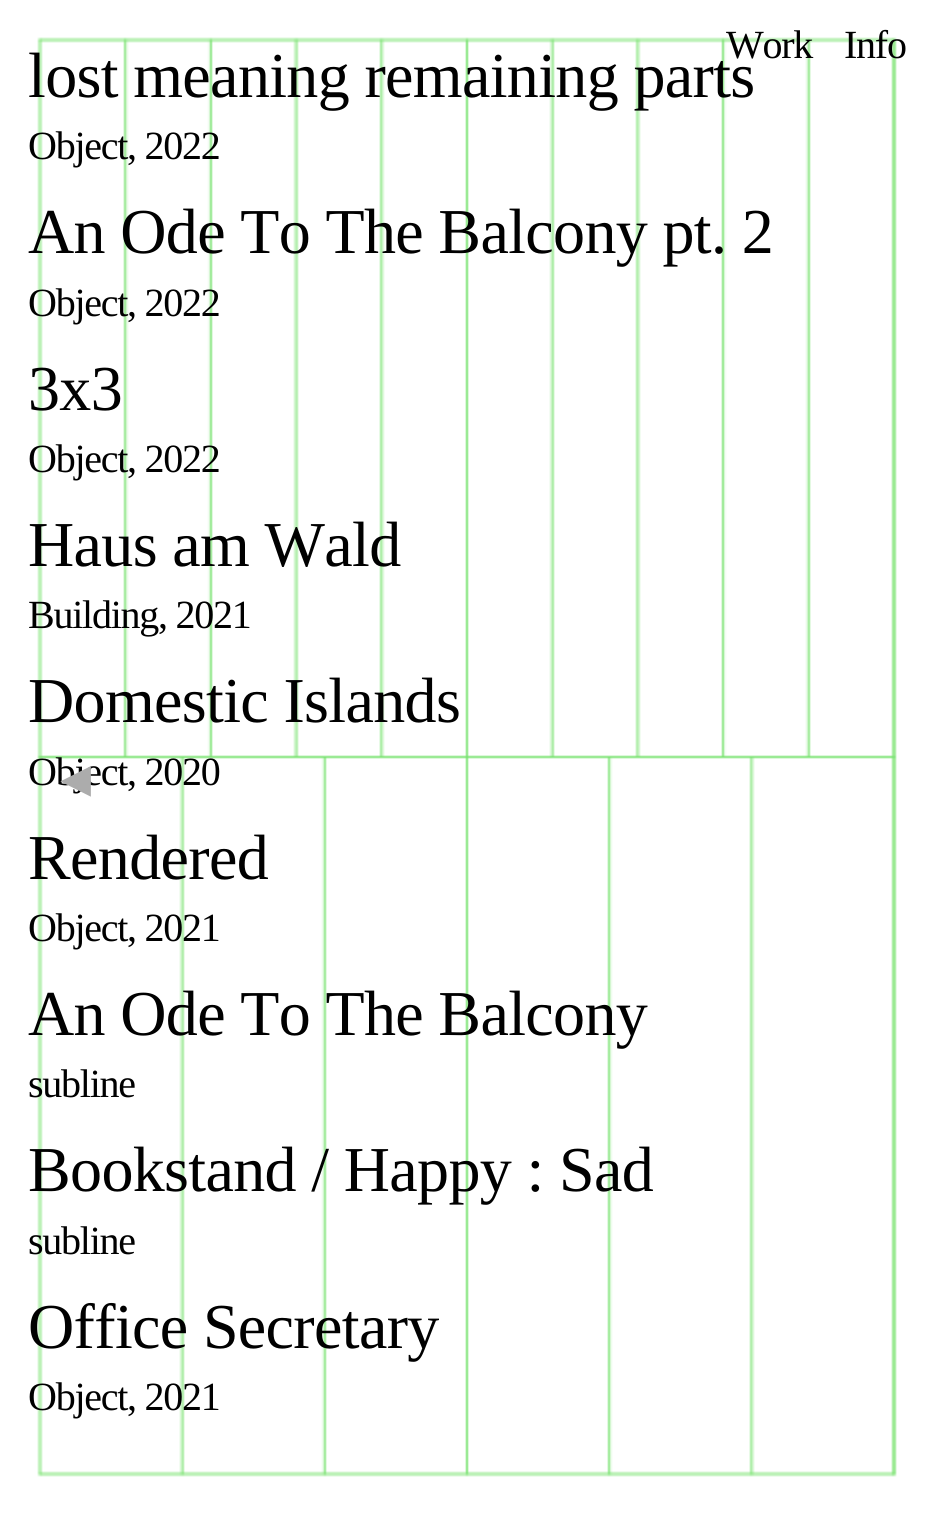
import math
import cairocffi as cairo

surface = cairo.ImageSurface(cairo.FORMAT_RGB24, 934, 1514)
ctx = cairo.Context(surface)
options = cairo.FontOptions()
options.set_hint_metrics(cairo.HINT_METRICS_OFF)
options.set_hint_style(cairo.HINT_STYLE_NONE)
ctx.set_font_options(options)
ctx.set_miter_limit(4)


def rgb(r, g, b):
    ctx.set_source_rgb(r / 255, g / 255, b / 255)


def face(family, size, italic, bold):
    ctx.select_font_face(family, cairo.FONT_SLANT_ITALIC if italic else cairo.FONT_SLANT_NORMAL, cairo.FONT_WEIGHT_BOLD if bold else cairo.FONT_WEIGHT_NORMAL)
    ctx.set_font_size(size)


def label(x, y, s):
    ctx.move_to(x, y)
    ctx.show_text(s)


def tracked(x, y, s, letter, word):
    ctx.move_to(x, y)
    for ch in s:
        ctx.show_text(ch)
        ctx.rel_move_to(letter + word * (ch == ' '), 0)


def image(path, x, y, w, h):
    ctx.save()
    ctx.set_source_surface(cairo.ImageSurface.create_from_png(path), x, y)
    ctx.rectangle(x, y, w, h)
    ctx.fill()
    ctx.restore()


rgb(255, 255, 255)
ctx.paint()
image('image0.png', 37, 37, 860, 1440)
face('Liberation Serif', 40, 0, 0)
rgb(0, 0, 0)
tracked(726, 58, 'Work', -1.25, 0)
tracked(844, 58, 'Info', -1.25, 0)
face('Liberation Serif', 64, 0, 0)
tracked(28, 97, 'lost meaning remaining parts', -0.65, 0)
face('Liberation Serif', 40, 0, 0)
tracked(28, 159, 'Object, 2022', -1.25, 0)
face('Liberation Serif', 64, 0, 0)
tracked(28, 253, 'An Ode To The Balcony pt. 2', -0.65, 0)
face('Liberation Serif', 40, 0, 0)
tracked(28, 316, 'Object, 2022', -1.25, 0)
face('Liberation Serif', 64, 0, 0)
tracked(28, 410, '3x3', -0.65, 0)
face('Liberation Serif', 40, 0, 0)
tracked(28, 472, 'Object, 2022', -1.25, 0)
face('Liberation Serif', 64, 0, 0)
tracked(28, 566, 'Haus am Wald', -0.65, 0)
face('Liberation Serif', 40, 0, 0)
tracked(28, 628, 'Building, 2021', -1.25, 0)
face('Liberation Serif', 64, 0, 0)
tracked(28, 722, 'Domestic Islands', -0.65, 0)
face('Liberation Serif', 40, 0, 0)
tracked(28, 785, 'Object, 2020', -1.25, 0)
face('Liberation Serif', 64, 0, 0)
tracked(28, 879, 'Rendered', -0.65, 0)
face('Liberation Serif', 40, 0, 0)
tracked(28, 941, 'Object, 2021', -1.25, 0)
face('Liberation Serif', 64, 0, 0)
tracked(28, 1035, 'An Ode To The Balcony', -0.65, 0)
face('Liberation Serif', 40, 0, 0)
tracked(28, 1097, 'subline', -1.25, 0)
face('Liberation Serif', 64, 0, 0)
tracked(28, 1191, 'Bookstand / Happy : Sad', -0.65, 0)
face('Liberation Serif', 40, 0, 0)
tracked(28, 1254, 'subline', -1.25, 0)
face('Liberation Serif', 64, 0, 0)
tracked(28, 1348, 'Office Secretary', -0.65, 0)
face('Liberation Serif', 40, 0, 0)
tracked(28, 1410, 'Object, 2021', -1.25, 0)
face('DejaVu Sans', 40, 0, 0)
rgb(172, 172, 172)
ctx.save()
ctx.translate(91, 771)
ctx.rotate(180 * math.pi / 180)
label(0, 0, '▶')
ctx.restore()
surface.write_to_png('render.png')
